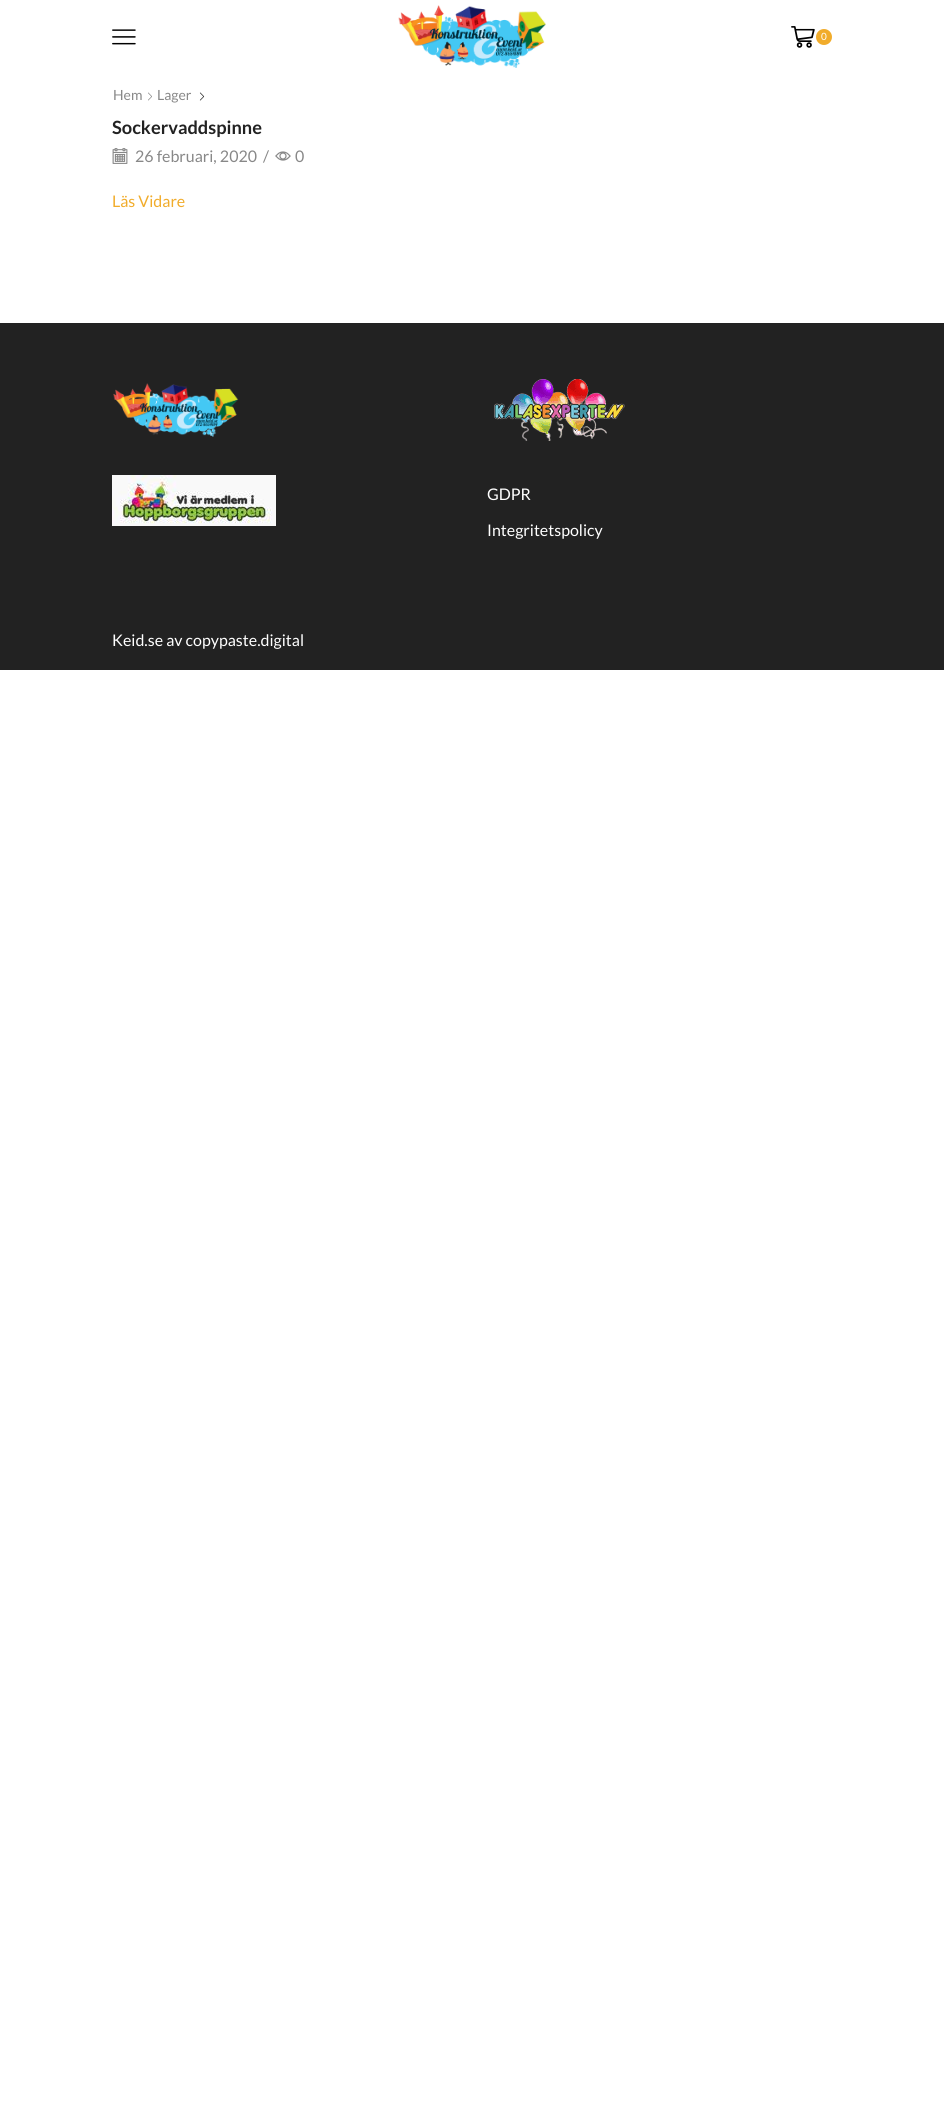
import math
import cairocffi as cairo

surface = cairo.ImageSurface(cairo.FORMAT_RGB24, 944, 2122)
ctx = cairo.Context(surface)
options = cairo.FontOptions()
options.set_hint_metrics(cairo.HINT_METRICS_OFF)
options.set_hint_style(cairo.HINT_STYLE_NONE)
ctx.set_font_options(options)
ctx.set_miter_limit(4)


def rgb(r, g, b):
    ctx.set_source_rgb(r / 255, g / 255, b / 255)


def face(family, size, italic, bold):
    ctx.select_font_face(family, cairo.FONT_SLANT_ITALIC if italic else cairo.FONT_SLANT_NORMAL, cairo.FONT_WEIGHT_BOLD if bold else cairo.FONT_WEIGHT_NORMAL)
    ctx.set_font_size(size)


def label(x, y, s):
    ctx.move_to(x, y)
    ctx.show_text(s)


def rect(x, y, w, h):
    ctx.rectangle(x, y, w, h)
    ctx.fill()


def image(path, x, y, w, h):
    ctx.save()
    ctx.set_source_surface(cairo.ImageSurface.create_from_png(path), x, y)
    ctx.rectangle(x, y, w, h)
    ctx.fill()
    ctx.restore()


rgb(255, 255, 255)
ctx.paint()
image('image0.png', 112, 29, 24, 16)
image('image1.png', 398, 5, 148, 63)
image('image2.png', 791, 26, 24, 22)
rgb(241, 172, 43)
ctx.arc(824, 37, 8, 0, 2 * math.pi)
ctx.fill()
face('Lato', 10, 0, 0)
rgb(255, 255, 255)
label(821, 40, '0')
face('Lato', 14, 0, 0)
rgb(136, 136, 136)
label(113, 100, 'Hem')
image('image3.png', 148, 92, 4, 9)
label(157, 100, 'Lager')
image('image4.png', 199, 92, 6, 9)
face('Lato', 18.25, 0, 1)
rgb(34, 34, 34)
label(112, 134, 'Sockervaddspinne')
image('image5.png', 112, 148, 16, 16)
face('Lato', 16, 0, 0)
rgb(136, 136, 136)
label(135, 162, '26 februari, 2020')
label(263, 162, '/')
image('image6.png', 275, 151, 16, 10)
label(295, 162, '0')
rgb(241, 172, 43)
label(112, 207, 'Läs Vidare')
rgb(34, 34, 34)
rect(0, 323, 944, 347)
image('image7.png', 113, 383, 126, 54)
image('image8.png', 494, 379, 131, 62)
image('image9.png', 112, 475, 164, 51)
rgb(255, 255, 255)
label(487, 500, 'GDPR')
label(487, 536, 'Integritetspolicy')
label(112, 646, 'Keid.se av copypaste.digital')
surface.write_to_png('render.png')
